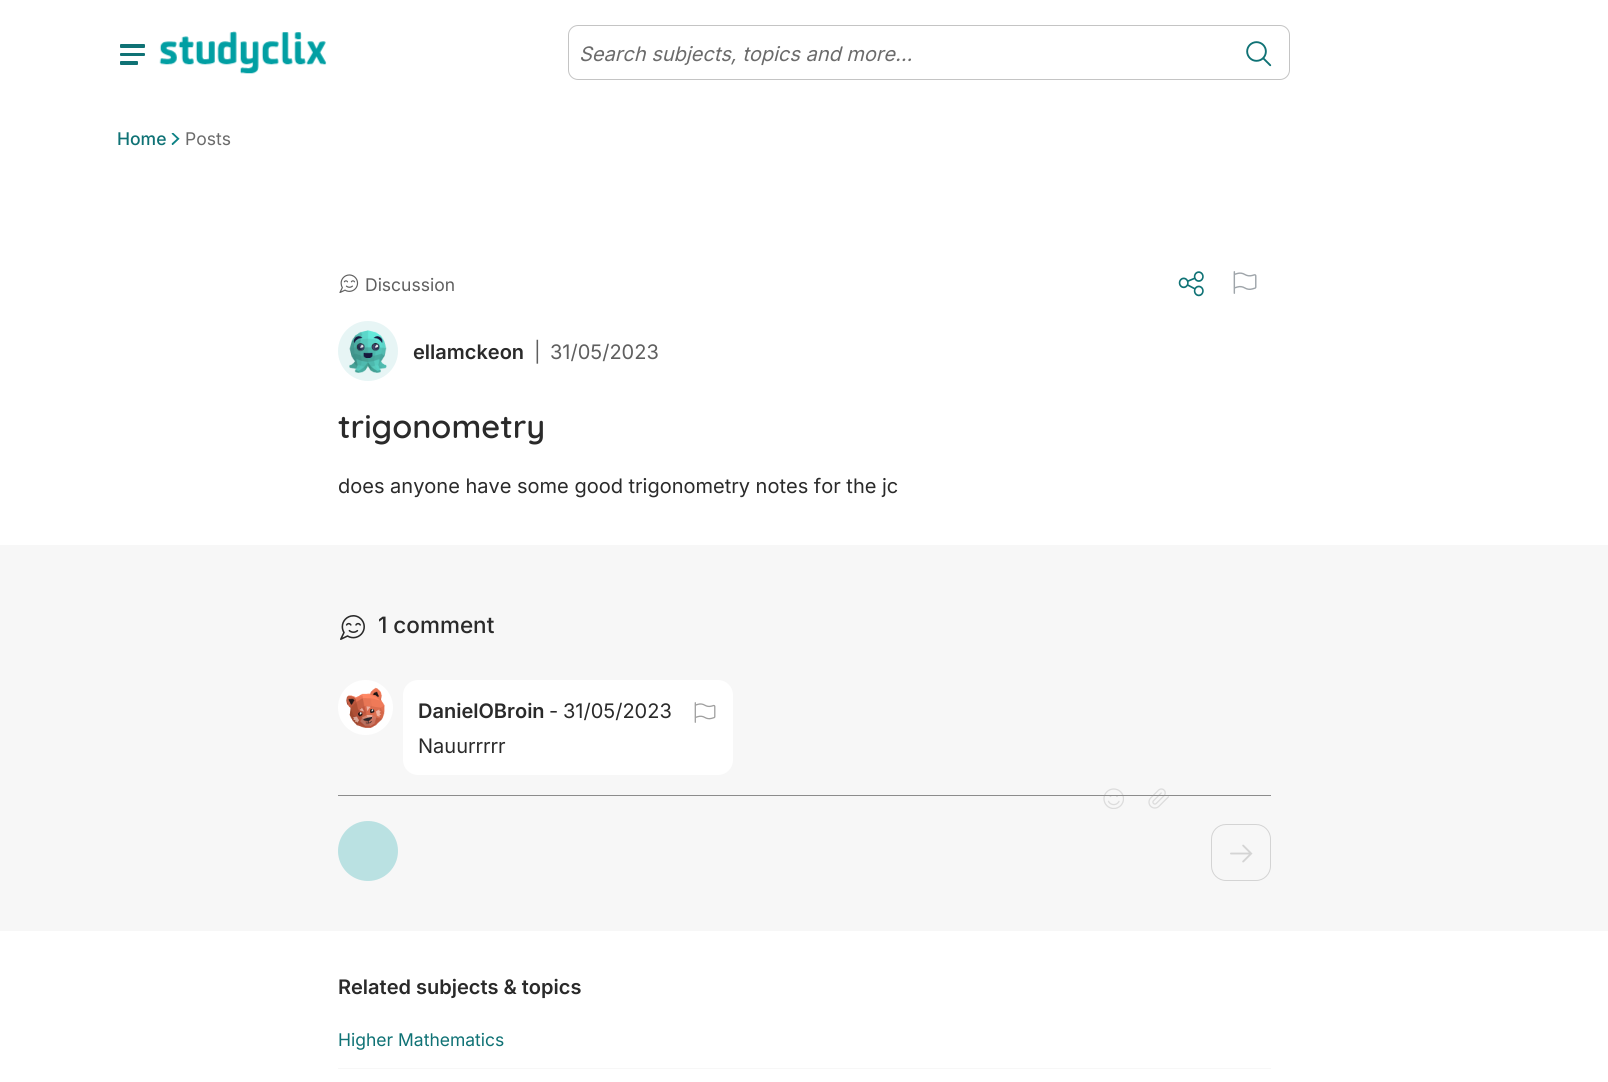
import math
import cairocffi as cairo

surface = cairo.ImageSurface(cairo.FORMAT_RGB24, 1608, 1082)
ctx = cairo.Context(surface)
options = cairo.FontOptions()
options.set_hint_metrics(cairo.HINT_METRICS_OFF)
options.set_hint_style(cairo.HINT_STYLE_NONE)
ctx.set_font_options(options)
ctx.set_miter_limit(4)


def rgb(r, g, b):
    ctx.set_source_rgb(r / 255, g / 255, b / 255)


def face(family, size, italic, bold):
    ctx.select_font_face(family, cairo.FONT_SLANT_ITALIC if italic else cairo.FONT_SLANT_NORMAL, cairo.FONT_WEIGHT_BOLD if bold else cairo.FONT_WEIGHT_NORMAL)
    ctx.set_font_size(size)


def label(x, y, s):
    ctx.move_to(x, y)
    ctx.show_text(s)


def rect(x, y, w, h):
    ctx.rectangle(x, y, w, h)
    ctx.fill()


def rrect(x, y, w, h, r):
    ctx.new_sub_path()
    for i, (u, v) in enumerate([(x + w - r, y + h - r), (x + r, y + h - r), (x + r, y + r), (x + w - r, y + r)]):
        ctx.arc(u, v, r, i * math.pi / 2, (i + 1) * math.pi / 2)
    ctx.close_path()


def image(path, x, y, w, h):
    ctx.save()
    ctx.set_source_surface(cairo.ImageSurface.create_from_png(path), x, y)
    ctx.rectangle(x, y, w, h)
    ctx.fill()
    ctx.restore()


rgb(255, 255, 255)
ctx.paint()
rgb(15, 114, 117)
rrect(120, 44, 25, 4, 1)
ctx.fill()
rrect(120, 53, 25, 3, 1)
ctx.fill()
rrect(120, 61, 18, 4, 1)
ctx.fill()
image('image0.png', 159, 31, 168, 43)
rrect(568.5, 25.5, 721, 54, 9.5)
rgb(196, 196, 196)
ctx.set_line_width(1)
ctx.stroke()
face('Inter', 20, 1, 0)
rgb(107, 107, 107)
label(579, 61, 'Search subjects, topics and more...')
image('image1.png', 1246, 41, 26, 26)
face('Inter Medium', 17.5, 0, 0)
rgb(15, 114, 117)
label(117, 145, 'Home')
image('image2.png', 171, 133, 9, 12)
face('Inter', 17.5, 0, 0)
rgb(107, 107, 107)
label(185, 145, 'Posts')
image('image3.png', 339, 274, 20, 19)
rgb(95, 95, 95)
label(365, 291, 'Discussion')
image('image4.png', 1178, 271, 26, 26)
image('image5.png', 1233, 271, 24, 23)
rgb(231, 245, 245)
ctx.arc(368, 351, 30, 0, 2 * math.pi)
ctx.fill()
image('image6.png', 349, 330, 38, 43)
face('Inter SemiBold', 20, 0, 0)
rgb(42, 42, 42)
label(413, 359, 'ellamckeon')
face('Inter', 20, 0, 0)
rgb(95, 95, 95)
label(534, 359, '|')
label(550, 359, '31/05/2023')
face('Quicksand SemiBold', 32.5, 0, 0)
rgb(42, 42, 42)
label(338, 438, 'trigonometry')
face('Inter', 20, 0, 0)
label(338, 493, 'does anyone have some good trigonometry notes for the jc')
rgb(247, 247, 247)
rect(0, 545, 1608, 386)
image('image7.png', 340, 615, 25, 25)
face('Inter Medium', 22.5, 0, 0)
rgb(42, 42, 42)
label(378, 633, '1 comment')
rgb(255, 255, 255)
ctx.new_path()
ctx.arc(365.5, 707.5, 27.5, 0, 2 * math.pi)
ctx.fill()
image('image8.png', 346, 687, 39, 41)
rrect(403, 680, 330, 95, 15)
ctx.fill()
face('Inter SemiBold', 20, 0, 0)
rgb(42, 42, 42)
label(418, 718, 'DanielOBroin')
face('Inter', 20, 0, 0)
label(549, 718, '-')
label(563, 718, '31/05/2023')
image('image9.png', 694, 702, 22, 21)
label(418, 753, 'Nauurrrrr')
rgb(140, 140, 140)
rect(338, 795, 933, 1)
image('image10.png', 1103, 788, 21, 21)
image('image11.png', 1148, 788, 21, 21)
rgb(186, 225, 226)
ctx.arc(368, 851, 30, 0, 2 * math.pi)
ctx.fill()
rrect(1211.5, 824.5, 59, 56, 14.5)
rgb(212, 212, 212)
ctx.stroke()
image('image12.png', 1230, 844, 23, 19)
face('Inter SemiBold', 20, 0, 0)
rgb(42, 42, 42)
label(338, 994, 'Related subjects & topics')
rgb(247, 247, 247)
rect(338, 1068, 933, 1)
face('Inter', 17.5, 0, 0)
rgb(15, 114, 117)
label(338, 1046, 'Higher Mathematics')
surface.write_to_png('render.png')
